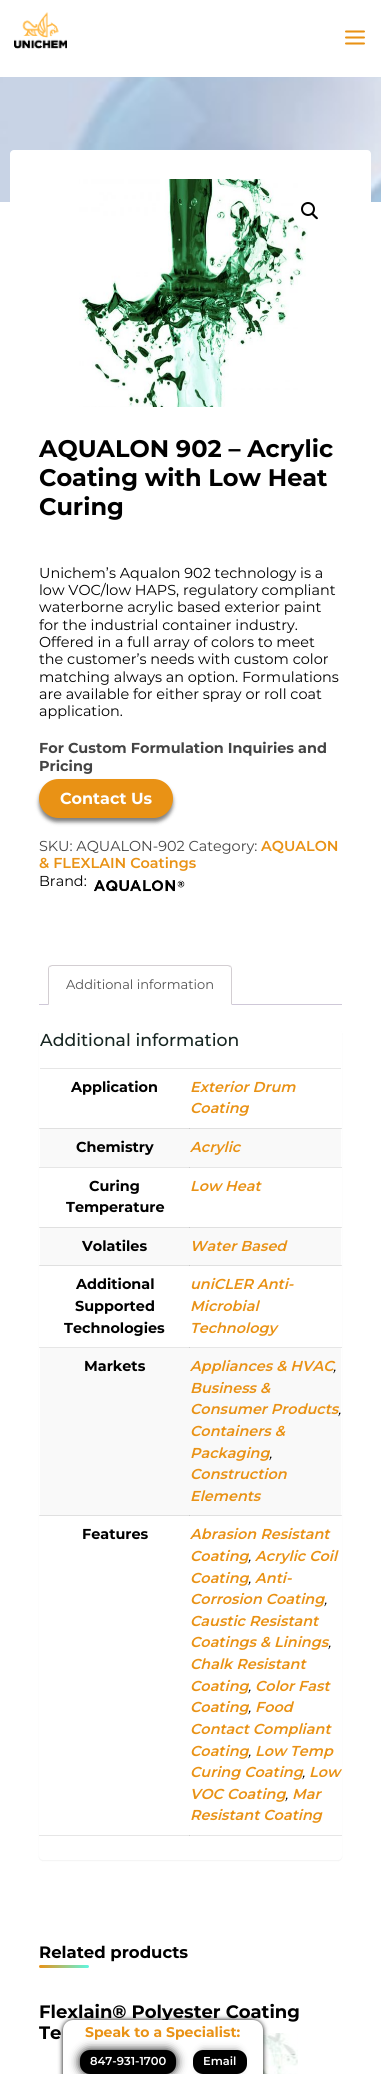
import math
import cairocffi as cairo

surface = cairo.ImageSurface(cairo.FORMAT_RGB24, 381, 2074)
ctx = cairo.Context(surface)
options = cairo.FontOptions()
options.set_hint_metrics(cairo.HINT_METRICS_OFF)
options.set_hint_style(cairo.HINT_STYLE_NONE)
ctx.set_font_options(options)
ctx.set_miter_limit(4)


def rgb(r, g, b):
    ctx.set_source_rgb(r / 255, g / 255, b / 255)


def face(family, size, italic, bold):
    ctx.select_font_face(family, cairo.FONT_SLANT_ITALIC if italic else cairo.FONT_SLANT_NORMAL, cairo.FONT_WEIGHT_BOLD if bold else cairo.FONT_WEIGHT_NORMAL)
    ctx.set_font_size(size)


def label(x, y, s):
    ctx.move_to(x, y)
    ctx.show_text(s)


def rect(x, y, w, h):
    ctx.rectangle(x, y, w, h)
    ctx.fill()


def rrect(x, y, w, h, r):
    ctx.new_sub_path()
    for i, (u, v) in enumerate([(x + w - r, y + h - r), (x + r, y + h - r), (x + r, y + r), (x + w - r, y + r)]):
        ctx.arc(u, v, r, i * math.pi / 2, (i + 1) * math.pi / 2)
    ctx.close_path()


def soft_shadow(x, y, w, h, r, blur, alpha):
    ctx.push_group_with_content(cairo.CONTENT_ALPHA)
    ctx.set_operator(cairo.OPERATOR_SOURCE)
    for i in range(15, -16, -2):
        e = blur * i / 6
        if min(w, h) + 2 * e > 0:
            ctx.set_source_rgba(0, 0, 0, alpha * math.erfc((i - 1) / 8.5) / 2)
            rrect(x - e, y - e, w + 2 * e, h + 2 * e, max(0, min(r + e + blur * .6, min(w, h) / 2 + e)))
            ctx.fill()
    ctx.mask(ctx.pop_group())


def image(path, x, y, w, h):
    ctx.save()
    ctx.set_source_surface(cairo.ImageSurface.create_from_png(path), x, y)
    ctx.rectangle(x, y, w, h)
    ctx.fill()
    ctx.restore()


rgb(255, 255, 255)
ctx.paint()
image('image0.png', 14, 12, 53, 37)
image('image1.png', 345, 30, 20, 15)
image('image2.png', 0, 77, 381, 125)
rgb(255, 255, 255)
rrect(10, 150, 361, 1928, 4)
ctx.fill()
image('image3.png', 79, 179, 229, 228)
ctx.arc(310, 211, 18, 0, 2 * math.pi)
ctx.fill()
ctx.arc(308, 209, 6, 0, 2 * math.pi)
rgb(0, 0, 0)
ctx.stroke()
ctx.new_path()
ctx.move_to(312, 213.5)
ctx.curve_to(313, 212, 315, 215, 315.5, 215.5)
ctx.curve_to(316, 216, 319, 218, 317.5, 219)
ctx.curve_to(316.5, 220, 314.5, 217.5, 314, 217)
ctx.curve_to(313.5, 216.5, 311, 214.5, 312, 213.5)
ctx.close_path()
ctx.fill()
face('Montserrat', 24, 0, 1)
label(39, 457, 'AQUALON 902 – Acrylic')
label(39, 486, 'Coating with Low Heat')
label(39, 515, 'Curing')
face('Montserrat', 14.4, 0, 0)
label(39, 578, 'Unichem’s Aqualon 902 technology is a')
label(39, 595, 'low VOC/low HAPS, regulatory compliant')
label(39, 612, 'waterborne acrylic based exterior paint')
label(39, 630, 'for the industrial container industry.')
label(39, 647, 'Offered in a full array of colors to meet')
label(39, 664, 'the customer’s needs with custom color')
label(39, 682, 'matching always an option. Formulations')
label(39, 699, 'are available for either spray or roll coat')
label(39, 716, 'application.')
face('Montserrat', 14.4, 0, 1)
rgb(68, 68, 68)
label(39, 753, 'For Custom Formulation Inquiries and')
label(39, 771, 'Pricing')
rgb(0, 0, 0)
soft_shadow(39, 783, 134, 39, 19.5, 2, 0.5)
rgb(233, 146, 21)
rrect(40, 780, 132, 37, 18.5)
ctx.fill_preserve()
ctx.stroke()
face('Montserrat', 16, 0, 1)
rgb(255, 255, 255)
label(60, 804, 'Contact Us')
face('Montserrat', 14.4, 0, 0)
rgb(68, 68, 68)
label(39, 851, 'SKU: AQUALON-902 Category:')
face('Montserrat SemiBold', 14.4, 0, 0)
rgb(233, 146, 21)
label(261, 851, 'AQUALON')
label(39, 868, '& FLEXLAIN Coatings')
face('Montserrat', 14.4, 0, 0)
rgb(0, 0, 0)
label(39, 886, 'Brand:')
image('image4.png', 93, 880, 92, 12)
rgb(211, 206, 210)
ctx.new_path()
ctx.move_to(52, 965)
ctx.line_to(49, 966)
ctx.line_to(50, 967)
ctx.line_to(52, 966)
ctx.line_to(228, 966)
ctx.line_to(230, 967)
ctx.line_to(231, 966)
ctx.line_to(228, 965)
ctx.close_path()
ctx.fill()
rgb(207, 200, 216)
rect(39, 1004, 303, 1)
rgb(211, 206, 210)
ctx.new_path()
ctx.move_to(232, 1005)
ctx.line_to(232, 969)
ctx.curve_to(232, 968, 231.5, 967, 231, 966)
ctx.line_to(230, 967)
ctx.curve_to(231, 967, 231, 968, 231, 969)
ctx.line_to(231, 1004)
ctx.close_path()
ctx.fill()
rgb(255, 255, 255)
ctx.new_path()
ctx.move_to(232, 1005)
ctx.line_to(231, 1004)
ctx.line_to(49, 1004)
ctx.line_to(48, 1005)
ctx.close_path()
ctx.fill()
rgb(211, 206, 210)
ctx.new_path()
ctx.move_to(48, 1005)
ctx.line_to(49, 1004)
ctx.line_to(49, 969)
ctx.curve_to(49, 968, 49, 967, 50, 967)
ctx.line_to(49, 966)
ctx.curve_to(48.5, 967, 48, 968, 48, 969)
ctx.close_path()
ctx.fill()
face('Montserrat', 13, 0, 0)
rgb(81, 81, 81)
label(66, 989, 'Additional information')
rgb(0, 0, 0)
soft_shadow(39, 1030, 303, 831, 4, 0.5, 0.05)
rgb(255, 255, 255)
rrect(39, 1029, 303, 831, 4)
ctx.fill()
rgb(230, 230, 230)
rect(39, 1128, 1, 1)
rect(341, 1128, 1, 1)
rect(39, 1167, 303, 1)
rect(39, 1227, 1, 1)
rect(341, 1227, 1, 1)
rect(39, 1265, 1, 1)
rect(341, 1265, 1, 1)
rect(39, 1347, 303, 1)
rect(39, 1515, 1, 1)
rect(341, 1515, 1, 1)
rect(39, 1835, 303, 1)
face('Montserrat Medium', 17.25, 0, 0)
rgb(22, 37, 33)
label(40, 1046, 'Additional information')
rgb(230, 230, 230)
rect(40, 1068, 301, 1)
face('Montserrat', 14.4, 0, 1)
rgb(0, 0, 0)
label(71, 1092, 'Application')
face('Montserrat SemiBold', 14.4, 1, 0)
rgb(233, 146, 21)
label(190, 1092, 'Exterior Drum')
label(190, 1113, 'Coating')
rgb(249, 249, 249)
rect(40, 1129, 301, 38)
rgb(224, 224, 224)
rect(40, 1128, 301, 1)
rgb(202, 202, 202)
rect(189, 1128, 1, 1)
face('Montserrat', 14.4, 0, 1)
rgb(0, 0, 0)
label(76, 1152, 'Chemistry')
rgb(207, 207, 207)
rect(189, 1167, 1, 1)
face('Montserrat SemiBold', 14.4, 1, 0)
rgb(233, 146, 21)
label(190, 1152, 'Acrylic')
face('Montserrat', 14.4, 0, 1)
rgb(0, 0, 0)
label(89, 1191, 'Curing')
label(66, 1212, 'Temperature')
face('Montserrat SemiBold', 14.4, 1, 0)
rgb(233, 146, 21)
label(190, 1191, 'Low Heat')
rgb(249, 249, 249)
rect(40, 1228, 301, 37)
rgb(224, 224, 224)
rect(40, 1227, 301, 1)
rgb(202, 202, 202)
rect(189, 1227, 1, 1)
rgb(224, 224, 224)
rect(40, 1265, 301, 1)
rgb(202, 202, 202)
rect(189, 1265, 1, 1)
face('Montserrat', 14.4, 0, 1)
rgb(0, 0, 0)
label(82, 1251, 'Volatiles')
face('Montserrat SemiBold', 14.4, 1, 0)
rgb(233, 146, 21)
label(190, 1251, 'Water Based')
face('Montserrat', 14.4, 0, 1)
rgb(0, 0, 0)
label(76, 1289, 'Additional')
label(75, 1311, 'Supported')
label(64, 1333, 'Technologies')
rgb(207, 207, 207)
rect(189, 1347, 1, 1)
face('Montserrat SemiBold', 14.4, 1, 0)
rgb(233, 146, 21)
label(190, 1289, 'uniCLER Anti-')
label(190, 1311, 'Microbial')
label(190, 1333, 'Technology')
rgb(249, 249, 249)
rect(40, 1348, 301, 167)
rgb(224, 224, 224)
rect(40, 1515, 301, 1)
rgb(202, 202, 202)
rect(189, 1515, 1, 1)
face('Montserrat', 14.4, 0, 1)
rgb(0, 0, 0)
label(84, 1371, 'Markets')
face('Montserrat SemiBold', 14.4, 1, 0)
rgb(233, 146, 21)
label(190, 1371, 'Appliances & HVAC')
face('Montserrat', 14.4, 1, 0)
rgb(0, 0, 0)
label(333, 1371, ',')
face('Montserrat SemiBold', 14.4, 1, 0)
rgb(233, 146, 21)
label(190, 1393, 'Business &')
label(190, 1414, 'Consumer Products')
face('Montserrat', 14.4, 1, 0)
rgb(0, 0, 0)
label(338, 1414, ',')
face('Montserrat SemiBold', 14.4, 1, 0)
rgb(233, 146, 21)
label(190, 1436, 'Containers &')
label(190, 1458, 'Packaging')
face('Montserrat', 14.4, 1, 0)
rgb(0, 0, 0)
label(269, 1458, ',')
face('Montserrat SemiBold', 14.4, 1, 0)
rgb(233, 146, 21)
label(190, 1479, 'Construction')
label(190, 1501, 'Elements')
face('Montserrat', 14.4, 0, 1)
rgb(0, 0, 0)
label(82, 1539, 'Features')
rgb(207, 207, 207)
rect(189, 1835, 1, 1)
face('Montserrat SemiBold', 14.4, 1, 0)
rgb(233, 146, 21)
label(190, 1539, 'Abrasion Resistant')
label(190, 1561, 'Coating')
face('Montserrat', 14.4, 1, 0)
rgb(0, 0, 0)
label(248, 1561, ',')
face('Montserrat SemiBold', 14.4, 1, 0)
rgb(233, 146, 21)
label(255, 1561, 'Acrylic Coil')
label(190, 1583, 'Coating')
face('Montserrat', 14.4, 1, 0)
rgb(0, 0, 0)
label(248, 1583, ',')
face('Montserrat SemiBold', 14.4, 1, 0)
rgb(233, 146, 21)
label(255, 1583, 'Anti-')
label(190, 1604, 'Corrosion Coating')
face('Montserrat', 14.4, 1, 0)
rgb(0, 0, 0)
label(324, 1604, ',')
face('Montserrat SemiBold', 14.4, 1, 0)
rgb(233, 146, 21)
label(190, 1626, 'Caustic Resistant')
label(190, 1647, 'Coatings & Linings')
face('Montserrat', 14.4, 1, 0)
rgb(0, 0, 0)
label(328, 1647, ',')
face('Montserrat SemiBold', 14.4, 1, 0)
rgb(233, 146, 21)
label(190, 1669, 'Chalk Resistant')
label(190, 1691, 'Coating')
face('Montserrat', 14.4, 1, 0)
rgb(0, 0, 0)
label(248, 1691, ',')
face('Montserrat SemiBold', 14.4, 1, 0)
rgb(233, 146, 21)
label(255, 1691, 'Color Fast')
label(190, 1712, 'Coating')
face('Montserrat', 14.4, 1, 0)
rgb(0, 0, 0)
label(248, 1712, ',')
face('Montserrat SemiBold', 14.4, 1, 0)
rgb(233, 146, 21)
label(255, 1712, 'Food')
label(190, 1734, 'Contact Compliant')
label(190, 1756, 'Coating')
face('Montserrat', 14.4, 1, 0)
rgb(0, 0, 0)
label(248, 1756, ',')
face('Montserrat SemiBold', 14.4, 1, 0)
rgb(233, 146, 21)
label(255, 1756, 'Low Temp')
label(190, 1777, 'Curing Coating')
label(309, 1777, 'Low')
face('Montserrat', 14.4, 1, 0)
rgb(0, 0, 0)
label(302, 1777, ',')
face('Montserrat SemiBold', 14.4, 1, 0)
rgb(233, 146, 21)
label(190, 1799, 'VOC Coating')
face('Montserrat', 14.4, 1, 0)
rgb(0, 0, 0)
label(285, 1799, ',')
face('Montserrat SemiBold', 14.4, 1, 0)
rgb(233, 146, 21)
label(292, 1799, 'Mar')
label(190, 1820, 'Resistant Coating')
face('Montserrat', 16.5, 0, 1)
rgb(0, 0, 0)
label(39, 1958, 'Related products')
gradient = cairo.LinearGradient(39, 1967, 89, 1967)
gradient.add_color_stop_rgba(0, 0.914, 0.573, 0.082, 1)
gradient.add_color_stop_rgba(1, 0.369, 0.969, 0.886, 1)
ctx.set_source(gradient)
rrect(39, 1965, 50, 3, 1.5)
ctx.fill()
image('image5.png', 263, 2033, 35, 41)
ctx.set_source_rgba(1, 1, 1, 0.5)
rect(263, 2033, 34, 21)
face('Montserrat', 18, 0, 1)
rgb(0, 0, 0)
label(39, 2018, 'Flexlain® Polyester Coating')
label(39, 2039, 'Te')
rgb(0, 0, 0)
soft_shadow(63, 2020, 200, 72, 10, 2.5, 1)
rgb(255, 255, 255)
rrect(63, 2020, 200, 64, 10)
ctx.fill()
face('Montserrat', 14, 0, 1)
rgb(233, 146, 21)
label(85, 2037, 'Speak to a Specialist:')
rgb(0, 0, 0)
soft_shadow(80, 2050, 96, 24, 10, 5, 1)
rgb(0, 0, 0)
rrect(80, 2050, 96, 24, 10)
ctx.fill()
face('Montserrat SemiBold', 11.5, 0, 0)
rgb(255, 255, 255)
label(90, 2065, '847-931-1700')
rgb(0, 0, 0)
rrect(193, 2050, 54, 24, 10)
ctx.fill()
ctx.save()
ctx.set_fill_rule(cairo.FILL_RULE_EVEN_ODD)
ctx.new_path()
ctx.move_to(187, 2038)
ctx.line_to(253, 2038)
ctx.line_to(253, 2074)
ctx.line_to(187, 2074)
ctx.close_path()
ctx.move_to(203, 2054)
ctx.line_to(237, 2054)
ctx.line_to(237, 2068)
ctx.line_to(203, 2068)
ctx.close_path()
ctx.clip()
rgb(0, 0, 0)
soft_shadow(203, 2054, 34, 14, 0, 5, 1)
ctx.restore()
rgb(255, 255, 255)
label(203, 2065, 'Email')
surface.write_to_png('render.png')
